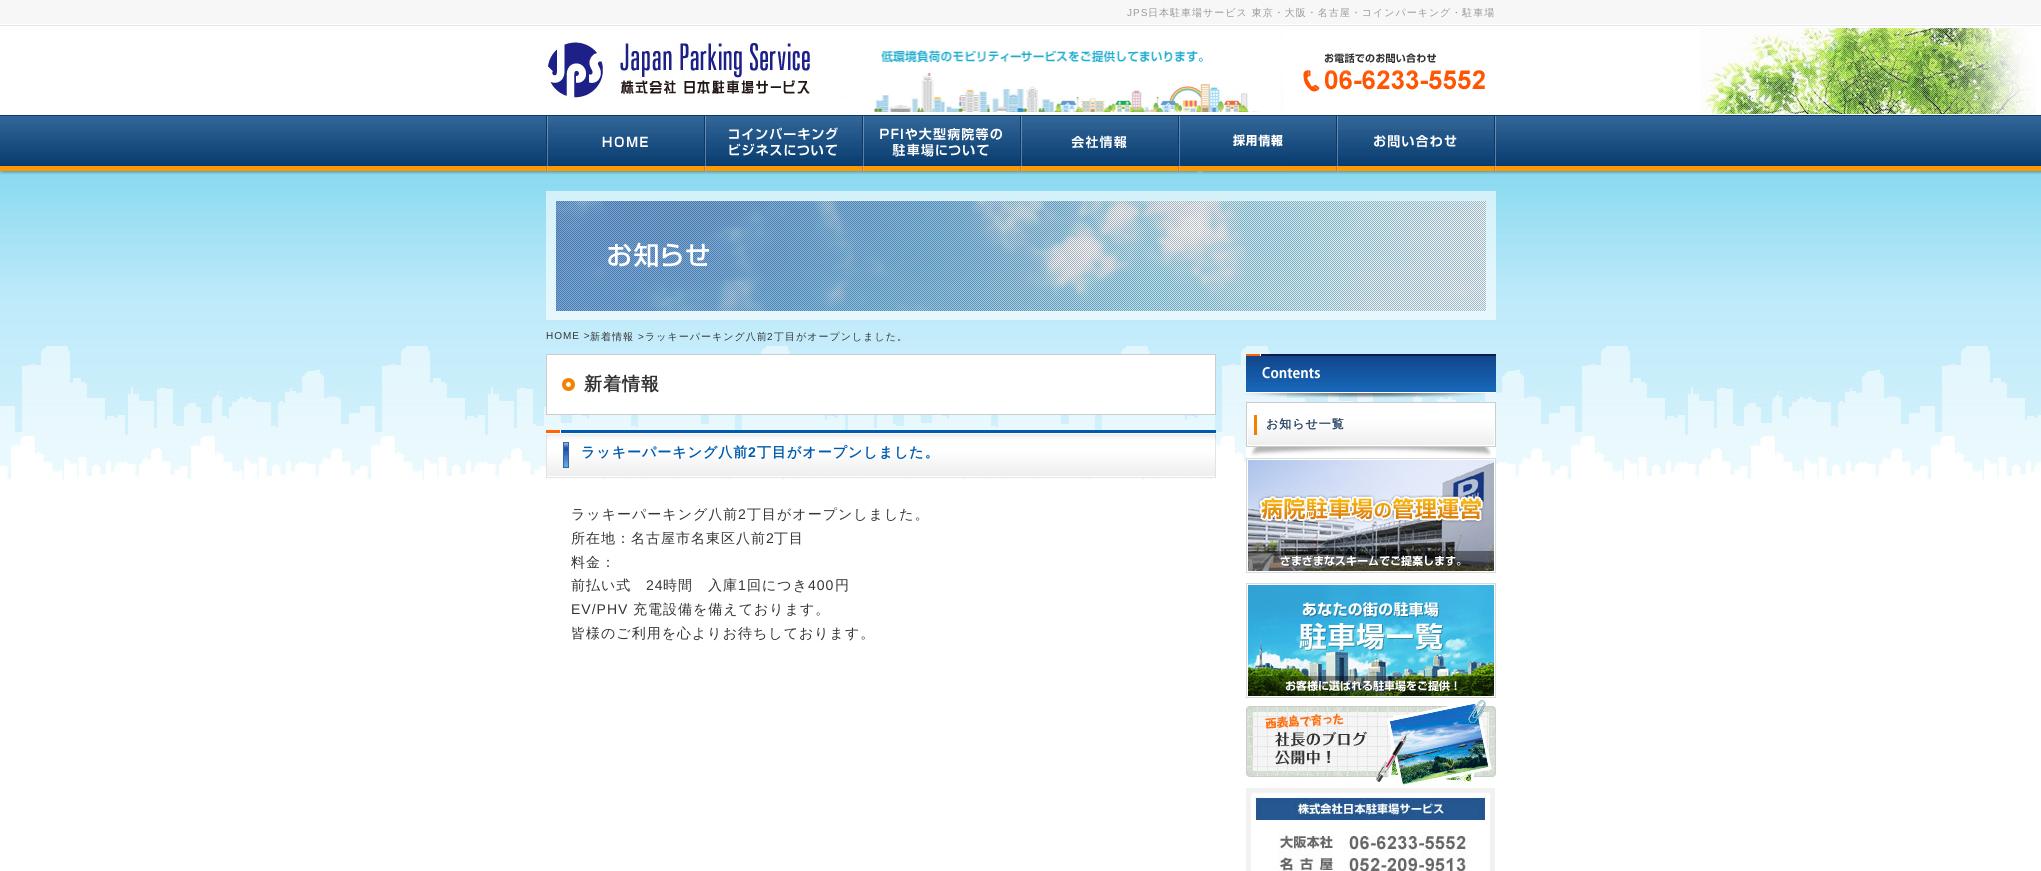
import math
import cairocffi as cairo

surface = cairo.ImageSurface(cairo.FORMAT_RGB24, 2041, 871)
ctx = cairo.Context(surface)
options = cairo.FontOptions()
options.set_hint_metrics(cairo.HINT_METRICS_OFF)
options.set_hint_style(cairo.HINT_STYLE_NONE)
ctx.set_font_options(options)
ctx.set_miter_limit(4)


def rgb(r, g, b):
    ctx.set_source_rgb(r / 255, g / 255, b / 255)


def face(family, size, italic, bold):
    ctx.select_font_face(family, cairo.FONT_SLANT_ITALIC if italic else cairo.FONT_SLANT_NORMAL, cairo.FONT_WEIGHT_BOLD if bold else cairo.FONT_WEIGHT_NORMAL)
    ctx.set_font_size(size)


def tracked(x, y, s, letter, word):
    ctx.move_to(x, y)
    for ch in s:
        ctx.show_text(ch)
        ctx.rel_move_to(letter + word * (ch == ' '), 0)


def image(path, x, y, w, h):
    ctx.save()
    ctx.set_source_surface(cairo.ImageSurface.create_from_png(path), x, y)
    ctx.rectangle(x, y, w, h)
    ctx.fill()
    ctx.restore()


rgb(255, 255, 255)
ctx.paint()
image('image0.png', 0, 0, 2041, 480)
image('image1.png', 1700, 24, 336, 91)
face('Liberation Sans', 10, 0, 0)
rgb(153, 153, 153)
tracked(1127, 16, 'JPS', 1, 0)
face('WenQuanYi Zen Hei Medium', 10, 0, 0)
tracked(1148, 16, '日本駐車場サービス 東京・大阪・名古屋・コインパーキング・駐車場', 1, 0)
image('image2.png', 713, 26, 570, 86)
image('image3.png', 546, 42, 265, 56)
image('image4.png', 1303, 53, 182, 39)
image('image5.png', 546, 115, 158, 56)
image('image6.png', 704, 115, 158, 56)
image('image7.png', 862, 115, 158, 56)
image('image8.png', 1020, 115, 158, 56)
image('image9.png', 1178, 116, 105, 55)
image('image10.png', 1336, 115, 160, 56)
image('image11.png', 546, 191, 950, 129)
face('Liberation Sans', 10, 0, 0)
rgb(51, 51, 51)
tracked(546, 339, 'HOME >', 1, 0)
face('WenQuanYi Zen Hei Medium', 10, 0, 0)
tracked(590, 340, '新着情報', 1, 0)
face('Liberation Sans', 10, 0, 0)
tracked(638, 340, '>', 1, 0)
face('WenQuanYi Zen Hei Medium', 10, 0, 0)
tracked(645, 340, 'ラッキーパーキング八前', 1, 0)
face('Liberation Sans', 10, 0, 0)
tracked(767, 340, '2', 1, 0)
face('WenQuanYi Zen Hei Medium', 10, 0, 0)
tracked(774, 340, '丁目がオープンしました。', 1, 0)
image('image12.png', 546, 354, 670, 61)
face('WenQuanYi Zen Hei', 18, 0, 1)
tracked(584, 390, '新着情報', 1, 0)
image('image13.png', 546, 430, 670, 48)
face('WenQuanYi Zen Hei', 14, 0, 1)
rgb(0, 91, 172)
tracked(581, 457, 'ラッキーパーキング八前', 1, 0)
face('Liberation Sans', 14, 0, 1)
tracked(748, 457, '2', 1, 0)
face('WenQuanYi Zen Hei', 14, 0, 1)
tracked(757, 457, '丁目がオープンしました。', 1, 0)
face('WenQuanYi Zen Hei Medium', 14, 0, 0)
rgb(51, 51, 51)
tracked(571, 519, 'ラッキーパーキング八前', 1, 0)
face('Liberation Sans', 14, 0, 0)
tracked(738, 519, '2', 1, 0)
face('WenQuanYi Zen Hei Medium', 14, 0, 0)
tracked(747, 519, '丁目がオープンしました。', 1, 0)
tracked(571, 543, '所在地：名古屋市名東区八前', 1, 0)
face('Liberation Sans', 14, 0, 0)
tracked(766, 543, '2', 1, 0)
face('WenQuanYi Zen Hei Medium', 14, 0, 0)
tracked(774, 543, '丁目', 1, 0)
tracked(571, 567, '料金：', 1, 0)
tracked(571, 590, '前払い式', 1, 0)
face('Liberation Sans', 14, 0, 0)
tracked(646, 590, '24', 1, 0)
face('WenQuanYi Zen Hei Medium', 14, 0, 0)
tracked(663, 590, '時間　入庫', 1, 0)
face('Liberation Sans', 14, 0, 0)
tracked(738, 590, '1', 1, 0)
face('WenQuanYi Zen Hei Medium', 14, 0, 0)
tracked(747, 590, '回につき', 1, 0)
face('Liberation Sans', 14, 0, 0)
tracked(808, 590, '400', 1, 0)
face('WenQuanYi Zen Hei Medium', 14, 0, 0)
tracked(835, 590, '円', 1, 0)
face('Liberation Sans', 14, 0, 0)
tracked(571, 614, 'EV/PHV', 1, 0)
face('WenQuanYi Zen Hei Medium', 14, 0, 0)
tracked(633, 614, '充電設備を備えております。', 1, 0)
tracked(571, 638, '皆様のご利用を心よりお待ちしております。', 1, 0)
image('image14.png', 1246, 354, 250, 44)
image('image15.png', 1246, 402, 250, 44)
face('WenQuanYi Zen Hei', 12, 0, 1)
rgb(37, 66, 101)
tracked(1266, 428, 'お知らせ一覧', 1, 0)
image('image16.png', 1246, 446, 250, 12)
image('image17.png', 1246, 458, 250, 119)
image('image18.png', 1246, 583, 250, 115)
image('image19.png', 1246, 698, 250, 88)
image('image20.png', 1246, 788, 249, 83)
surface.write_to_png('render.png')
